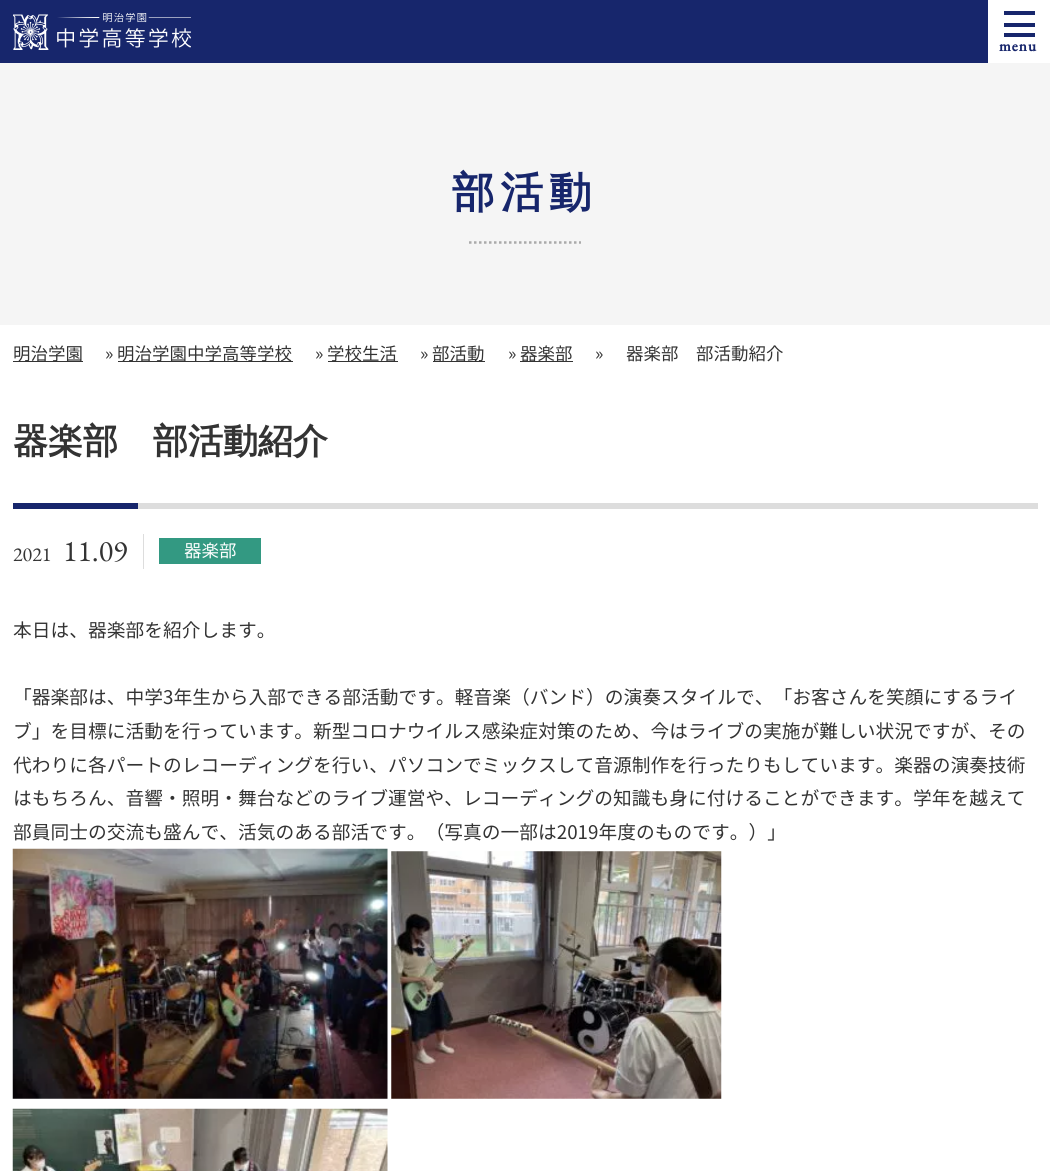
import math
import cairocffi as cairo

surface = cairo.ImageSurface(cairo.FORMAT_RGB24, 1050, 1171)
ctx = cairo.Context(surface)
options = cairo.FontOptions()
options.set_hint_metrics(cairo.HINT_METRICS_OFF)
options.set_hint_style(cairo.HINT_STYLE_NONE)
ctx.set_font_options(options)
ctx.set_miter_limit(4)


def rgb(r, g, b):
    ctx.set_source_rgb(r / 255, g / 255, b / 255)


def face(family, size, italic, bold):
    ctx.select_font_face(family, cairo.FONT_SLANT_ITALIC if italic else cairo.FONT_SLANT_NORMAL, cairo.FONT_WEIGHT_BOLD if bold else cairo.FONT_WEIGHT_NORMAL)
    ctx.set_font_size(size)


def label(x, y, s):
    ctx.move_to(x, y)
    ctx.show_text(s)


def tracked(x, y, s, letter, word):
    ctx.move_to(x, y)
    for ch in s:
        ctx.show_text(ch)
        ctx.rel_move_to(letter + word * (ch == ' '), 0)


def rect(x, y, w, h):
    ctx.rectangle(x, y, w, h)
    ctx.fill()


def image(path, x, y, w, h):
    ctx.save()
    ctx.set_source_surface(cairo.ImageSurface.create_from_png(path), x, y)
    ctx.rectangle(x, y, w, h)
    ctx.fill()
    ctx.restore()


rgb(255, 255, 255)
ctx.paint()
rgb(23, 38, 108)
rect(0, 0, 988, 63)
image('image0.png', 13, 13, 178, 37)
rect(1004, 11, 31, 4)
rect(1004, 23, 31, 4)
rect(1004, 33, 31, 4)
face('EB Garamond', 15, 0, 1)
tracked(999, 51, 'menu', 1, 0)
rgb(245, 245, 245)
rect(0, 63, 1050, 262)
face('WenQuanYi Zen Hei', 42.5, 0, 1)
rgb(23, 38, 108)
tracked(452, 207, '部活動', 6, 0)
ctx.new_path()
ctx.move_to(469, 242.5)
ctx.line_to(581, 242.5)
rgb(170, 170, 170)
ctx.set_line_width(2.5)
ctx.set_dash([2.5, 2.5])
ctx.stroke()
rgb(51, 51, 51)
rect(13, 361, 70, 1)
face('Noto Sans JP', 17.5, 0, 0)
label(13, 360, '明治学園')
label(105, 360, '»')
rect(118, 361, 175, 1)
label(117, 360, '明治学園中学高等学校')
label(315, 360, '»')
rect(328, 361, 70, 1)
label(327, 360, '学校生活')
label(420, 360, '»')
rect(433, 361, 52, 1)
label(432, 360, '部活動')
label(508, 360, '»')
rect(520, 361, 53, 1)
label(520, 360, '器楽部')
label(595, 360, '»')
label(626, 360, '器楽部　部活動紹介')
rgb(221, 221, 221)
rect(138, 503, 900, 6)
face('WenQuanYi Zen Hei', 35, 0, 1)
rgb(51, 51, 51)
label(13, 453, '器楽部　部活動紹介')
rgb(23, 38, 108)
rect(13, 503, 125, 6)
rgb(221, 221, 221)
rect(143, 534, 1, 35)
face('EB Garamond', 20, 0, 0)
rgb(51, 51, 51)
label(13, 561, '2021')
face('EB Garamond', 30, 0, 0)
label(63, 561, '11.09')
rgb(51, 153, 130)
rect(159, 538, 102, 26)
face('Noto Sans JP', 17.5, 0, 0)
rgb(255, 255, 255)
label(184, 557, '器楽部')
face('Noto Sans JP', 18.75, 0, 0)
rgb(51, 51, 51)
label(13, 637, '本日は、器楽部を紹介します。')
label(13, 704, '「器楽部は、中学3年生から入部できる部活動です。軽音楽（バンド）の演奏スタイルで、「お客さんを笑顔にするライ')
label(13, 738, 'ブ」を目標に活動を行っています。新型コロナウイルス感染症対策のため、今はライブの実施が難しい状況ですが、その')
label(13, 772, '代わりに各パートのレコーディングを行い、パソコンでミックスして音源制作を行ったりもしています。楽器の演奏技術')
label(13, 805, 'はもちろん、音響・照明・舞台などのライブ運営や、レコーディングの知識も身に付けることができます。学年を越えて')
label(13, 839, '部員同士の交流も盛んで、活気のある部活です。（写真の一部は2019年度のものです。）」')
image('image1.png', 12, 848, 376, 251)
image('image2.png', 391, 851, 331, 248)
image('image3.png', 12, 1108, 376, 63)
surface.write_to_png('render.png')
